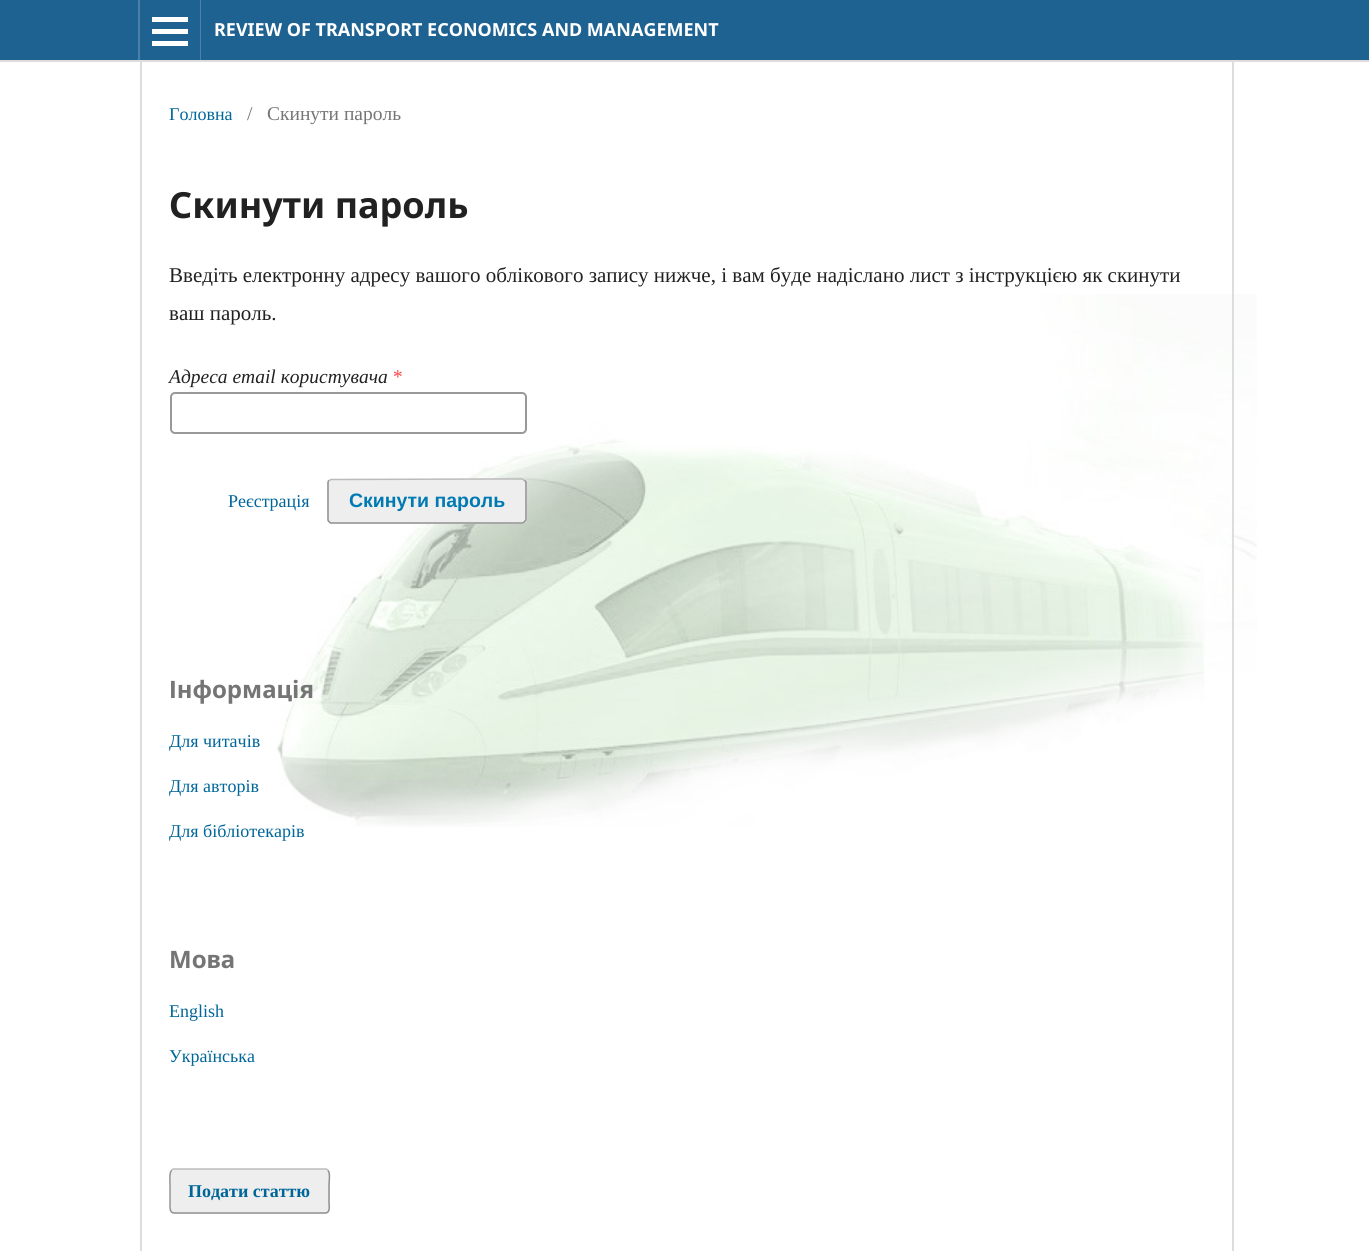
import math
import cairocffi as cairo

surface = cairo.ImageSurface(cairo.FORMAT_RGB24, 1369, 1251)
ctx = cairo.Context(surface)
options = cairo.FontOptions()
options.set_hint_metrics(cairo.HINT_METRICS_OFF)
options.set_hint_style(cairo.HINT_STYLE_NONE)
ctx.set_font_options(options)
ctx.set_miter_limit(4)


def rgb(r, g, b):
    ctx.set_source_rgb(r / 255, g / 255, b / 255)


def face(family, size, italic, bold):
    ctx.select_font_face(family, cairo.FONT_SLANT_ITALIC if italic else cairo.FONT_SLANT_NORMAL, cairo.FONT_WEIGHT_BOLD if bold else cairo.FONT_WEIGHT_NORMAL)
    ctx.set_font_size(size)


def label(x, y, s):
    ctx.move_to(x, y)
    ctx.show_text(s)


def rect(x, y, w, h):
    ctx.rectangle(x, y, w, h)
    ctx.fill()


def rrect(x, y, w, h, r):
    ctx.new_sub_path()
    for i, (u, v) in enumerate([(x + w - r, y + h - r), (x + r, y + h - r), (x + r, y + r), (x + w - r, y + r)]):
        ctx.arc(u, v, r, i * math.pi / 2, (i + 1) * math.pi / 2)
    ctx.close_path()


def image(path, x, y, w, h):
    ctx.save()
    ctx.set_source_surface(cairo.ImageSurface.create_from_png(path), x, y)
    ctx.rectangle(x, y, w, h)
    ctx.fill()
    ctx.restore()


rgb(255, 255, 255)
ctx.paint()
image('image0.png', 276, 294, 981, 533)
rgb(30, 98, 146)
rect(0, 0, 1369, 60)
rgb(221, 221, 221)
rect(0, 60, 1369, 2)
rgb(75, 129, 168)
rect(138, 0, 2, 60)
rect(200, 0, 1, 60)
rgb(255, 255, 255)
rect(152, 41, 36, 5)
rect(152, 17, 36, 5)
rect(152, 29, 36, 5)
face('Noto Sans', 18, 0, 1)
label(214, 36, 'REVIEW OF TRANSPORT ECONOMICS AND MANAGEMENT')
rgb(221, 221, 221)
rect(140, 62, 2, 1189)
face('Liberation Serif', 18, 0, 0)
rgb(0, 102, 153)
label(169, 120, 'Головна')
face('Liberation Serif', 19.5, 0, 0)
rgb(117, 117, 117)
label(247, 120, '/')
label(267, 120, 'Скинути пароль')
face('Noto Sans', 36, 0, 1)
rgb(33, 33, 33)
label(169, 218, 'Скинути пароль')
face('Liberation Serif', 21, 0, 0)
label(169, 282, 'Введіть електронну адресу вашого облікового запису нижче, і вам буде надіслано лист з інструкцією як скинути')
label(169, 320, 'ваш пароль.')
face('Liberation Serif', 19.5, 1, 0)
label(169, 383, 'Адреса email користувача')
rgb(255, 64, 64)
label(392, 383, '*')
rrect(171, 393, 355, 40, 4)
rgb(153, 153, 153)
ctx.stroke()
face('Liberation Serif', 18, 0, 0)
rgb(0, 102, 153)
label(228, 507, 'Реєстрація')
rgb(238, 238, 238)
rrect(327, 479, 200, 45, 5)
ctx.fill()
ctx.new_path()
ctx.move_to(329, 480.5)
ctx.line_to(331, 479.5)
ctx.line_to(490, 479)
ctx.line_to(522, 479)
ctx.line_to(524.5, 480.5)
rgb(187, 187, 187)
ctx.set_line_width(1.5)
ctx.stroke()
ctx.new_path()
ctx.move_to(524.5, 480.5)
ctx.curve_to(525.5, 481, 526, 482, 526, 483)
ctx.line_to(526, 519)
ctx.curve_to(526, 520, 525.5, 521, 524.5, 521.5)
ctx.curve_to(524, 522.5, 523, 523, 522, 523)
ctx.line_to(331.5, 523)
ctx.curve_to(330.5, 523, 329.5, 522.5, 329, 521.5)
ctx.curve_to(328, 521, 328, 520, 328, 519)
ctx.line_to(328, 483)
ctx.curve_to(328, 482, 328, 481, 329, 480.5)
ctx.set_source_rgba(0, 0, 0, 0.4)
ctx.stroke()
face('Liberation Sans', 19.5, 0, 1)
rgb(0, 122, 178)
label(349, 507, 'Скинути пароль')
rgb(221, 221, 221)
rect(1232, 62, 2, 1189)
face('Noto Sans', 24, 0, 1)
rgb(117, 117, 117)
label(169, 698, 'Інформація')
face('Liberation Serif', 18, 0, 0)
rgb(0, 102, 153)
label(169, 747, 'Для читачів')
label(169, 792, 'Для авторів')
label(169, 837, 'Для бібліотекарів')
face('Noto Sans', 24, 0, 1)
rgb(117, 117, 117)
label(169, 968, 'Мова')
face('Liberation Serif', 18, 0, 0)
rgb(0, 102, 153)
label(169, 1017, 'English')
label(169, 1062, 'Українська')
rgb(238, 238, 238)
rrect(170, 1169, 160, 45, 5)
ctx.fill()
ctx.new_path()
ctx.move_to(171.5, 1170.5)
ctx.curve_to(172, 1169.5, 173, 1169, 174, 1169)
ctx.line_to(325.5, 1169)
ctx.curve_to(326.5, 1169, 327.5, 1169.5, 328, 1170.5)
rgb(187, 187, 187)
ctx.stroke()
ctx.new_path()
ctx.move_to(328, 1170.5)
ctx.curve_to(330.5, 1173, 329, 1182, 329, 1185)
ctx.line_to(329, 1203)
ctx.curve_to(329, 1206, 330.5, 1212.5, 325.5, 1213)
ctx.line_to(174, 1213)
ctx.curve_to(169, 1212.5, 170, 1206, 170, 1203)
ctx.line_to(170, 1185)
ctx.curve_to(170, 1182, 169, 1173, 171.5, 1170.5)
ctx.set_source_rgba(0, 0, 0, 0.4)
ctx.stroke()
face('Liberation Serif', 18, 0, 1)
rgb(0, 102, 153)
label(188, 1197, 'Подати статтю')
surface.write_to_png('render.png')
